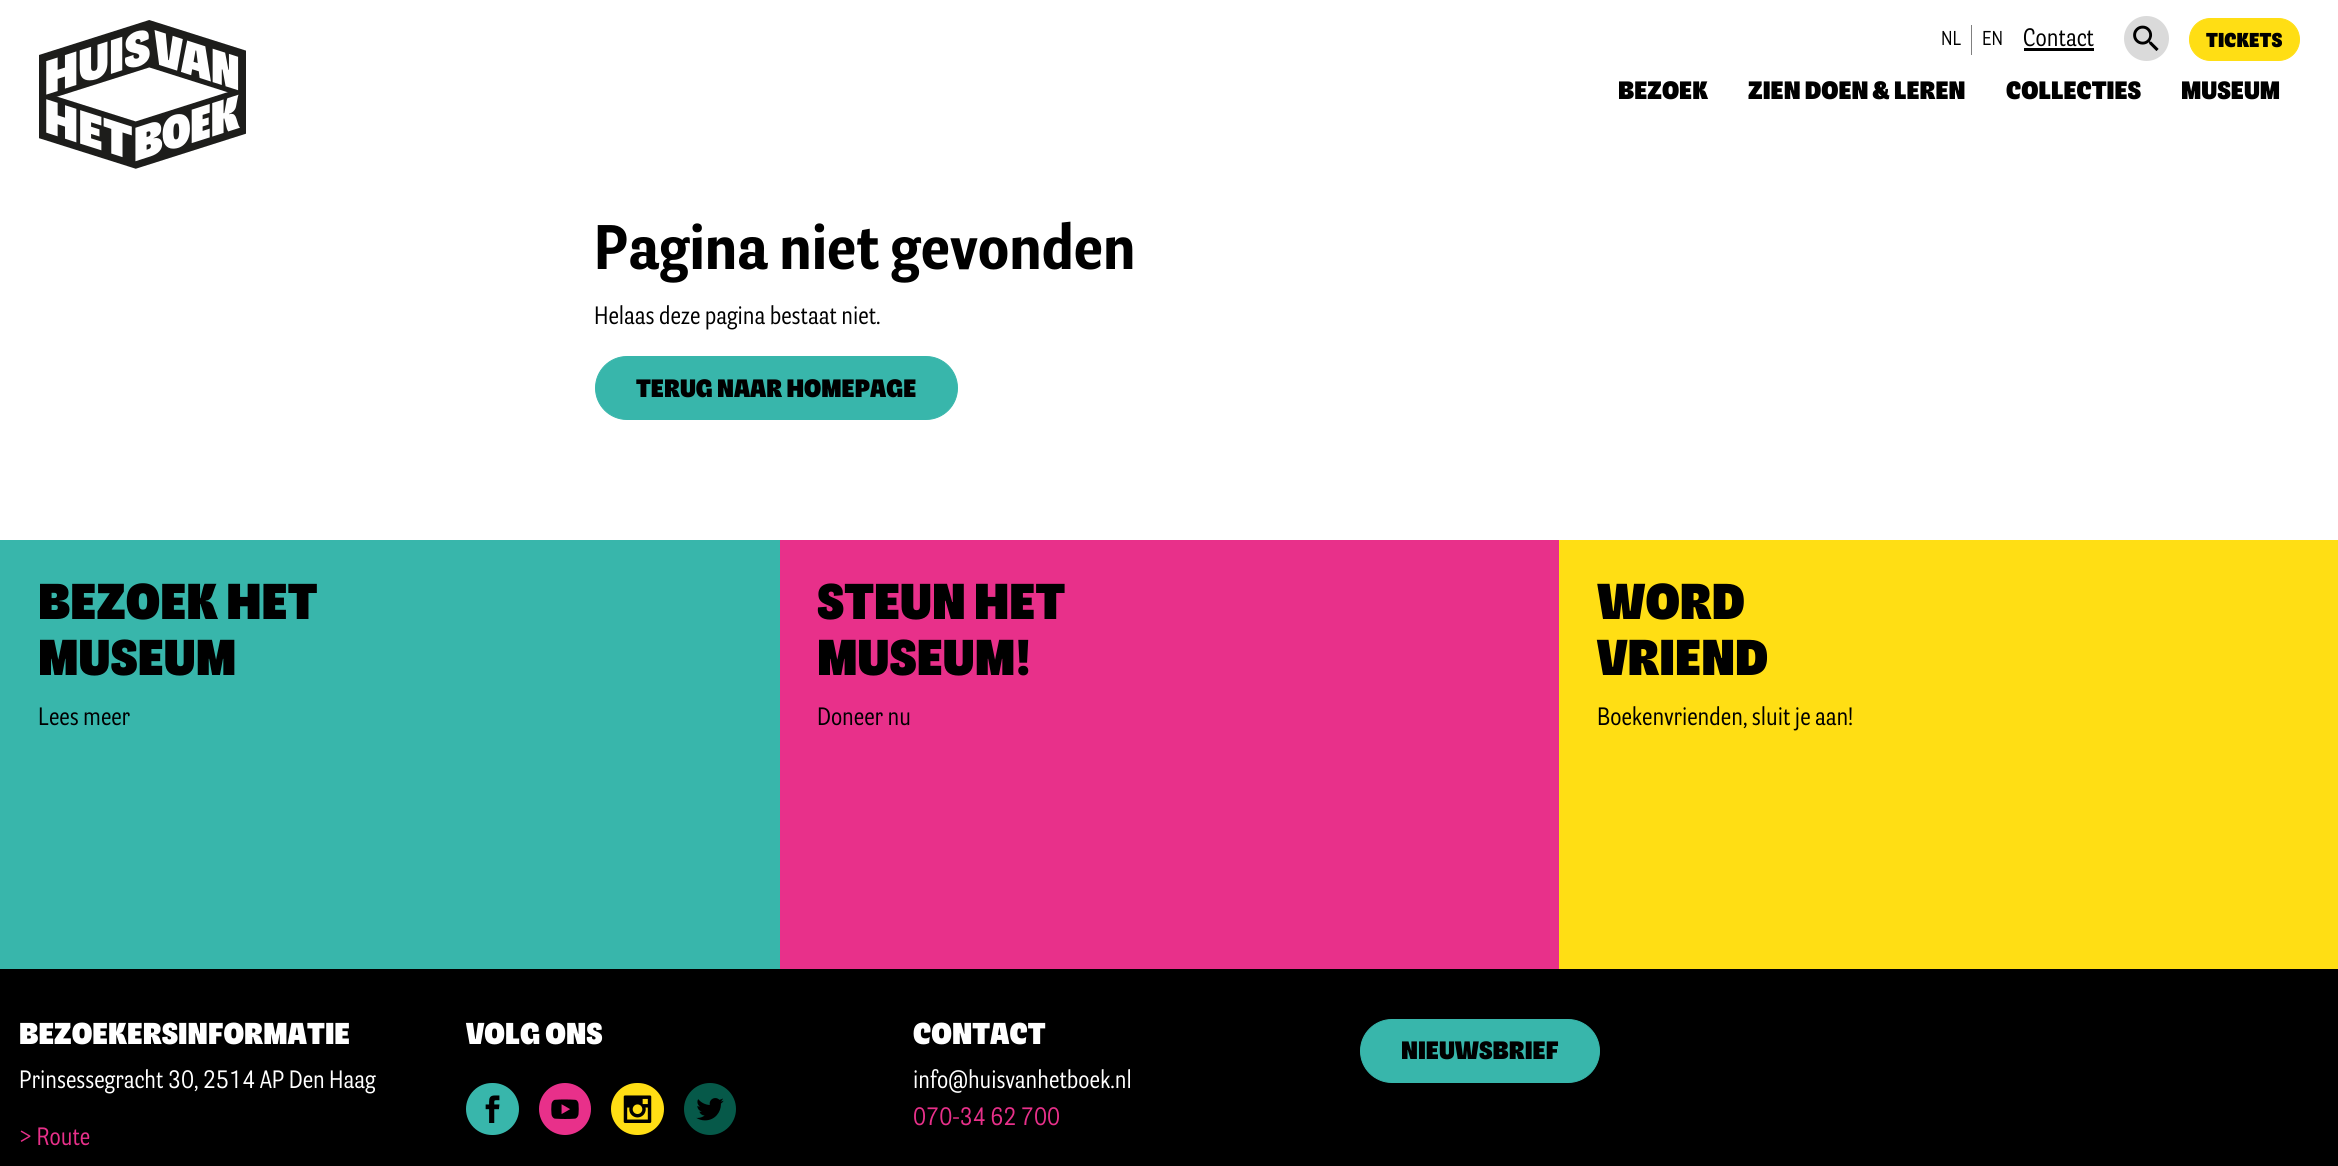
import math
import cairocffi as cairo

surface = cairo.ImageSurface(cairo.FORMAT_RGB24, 2338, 1166)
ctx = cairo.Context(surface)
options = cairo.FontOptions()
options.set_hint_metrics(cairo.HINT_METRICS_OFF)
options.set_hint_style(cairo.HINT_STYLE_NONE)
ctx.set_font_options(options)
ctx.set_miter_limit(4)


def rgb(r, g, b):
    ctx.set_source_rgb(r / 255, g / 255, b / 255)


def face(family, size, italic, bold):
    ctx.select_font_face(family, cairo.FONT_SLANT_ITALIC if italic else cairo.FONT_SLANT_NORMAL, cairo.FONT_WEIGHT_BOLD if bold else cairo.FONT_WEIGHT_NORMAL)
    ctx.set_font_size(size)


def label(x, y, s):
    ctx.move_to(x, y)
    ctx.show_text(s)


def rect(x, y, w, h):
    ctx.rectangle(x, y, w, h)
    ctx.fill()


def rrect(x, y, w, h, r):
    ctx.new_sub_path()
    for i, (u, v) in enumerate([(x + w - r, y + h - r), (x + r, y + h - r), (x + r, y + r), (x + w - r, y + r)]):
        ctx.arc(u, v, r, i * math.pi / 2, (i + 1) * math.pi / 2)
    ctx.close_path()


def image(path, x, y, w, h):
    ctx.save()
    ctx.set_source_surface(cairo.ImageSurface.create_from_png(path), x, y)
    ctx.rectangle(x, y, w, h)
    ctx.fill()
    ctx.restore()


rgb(255, 255, 255)
ctx.paint()
image('image0.png', 39, 20, 207, 149)
rgb(128, 128, 128)
rect(1971, 25, 1, 30)
face('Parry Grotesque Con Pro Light', 20, 0, 0)
rgb(0, 0, 0)
label(1941, 45, 'NL')
label(1982, 45, 'EN')
face('Parry Grotesque Con Pro Light', 25, 0, 0)
label(2023, 46, 'Contact')
rect(2024, 48, 70, 3)
rgb(218, 218, 218)
ctx.new_path()
ctx.arc(2146.5, 38.5, 22.5, 0, 2 * math.pi)
ctx.fill()
image('image1.png', 2133, 25, 26, 26)
rgb(255, 222, 20)
rrect(2189.5, 18.5, 110, 42, 21)
ctx.fill_preserve()
ctx.set_line_width(1)
ctx.stroke()
face('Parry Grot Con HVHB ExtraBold', 20, 0, 0)
rgb(0, 0, 0)
label(2206, 47, 'TICKETS')
face('Parry Grot Con HVHB ExtraBold', 25, 0, 0)
label(1618, 99, 'BEZOEK')
label(1748, 99, 'ZIEN DOEN & LEREN')
label(2006, 99, 'COLLECTIES')
label(2181, 99, 'MUSEUM')
face('Parry Grotesque Con Pro', 62.5, 0, 1)
label(594, 269, 'Pagina niet gevonden')
face('Parry Grotesque Con Pro Light', 25, 0, 0)
label(594, 324, 'Helaas deze pagina bestaat niet.')
rgb(56, 182, 171)
rrect(595.5, 356.5, 362, 63, 31.5)
ctx.fill_preserve()
ctx.stroke()
face('Parry Grot Con HVHB ExtraBold', 25, 0, 0)
rgb(0, 0, 0)
label(636, 397, 'TERUG NAAR HOMEPAGE')
rgb(56, 182, 171)
rect(0, 540, 780, 429)
face('Parry Grot Con HVHB ExtraBold', 50, 0, 0)
rgb(0, 0, 0)
label(38, 619, 'BEZOEK HET')
label(38, 675, 'MUSEUM')
face('Parry Grotesque Con Pro Light', 25, 0, 0)
label(38, 725, 'Lees meer')
rgb(232, 48, 138)
rect(780, 540, 779, 429)
face('Parry Grot Con HVHB ExtraBold', 50, 0, 0)
rgb(0, 0, 0)
label(817, 619, 'STEUN HET')
label(817, 675, 'MUSEUM!')
face('Parry Grotesque Con Pro Light', 25, 0, 0)
label(817, 725, 'Doneer nu')
rgb(255, 222, 20)
rect(1559, 540, 779, 429)
face('Parry Grot Con HVHB ExtraBold', 50, 0, 0)
rgb(0, 0, 0)
label(1597, 619, 'WORD')
label(1597, 675, 'VRIEND')
face('Parry Grotesque Con Pro Light', 25, 0, 0)
label(1597, 725, 'Boekenvrienden, sluit je aan!')
rect(0, 969, 2338, 197)
face('Parry Grot Con HVHB ExtraBold', 30, 0, 0)
rgb(255, 255, 255)
label(19, 1044, 'BEZOEKERSINFORMATIE')
face('Parry Grotesque Con Pro Light', 25, 0, 0)
label(19, 1088, 'Prinsessegracht 30, 2514 AP Den Haag')
rgb(232, 48, 138)
label(19, 1145, '> Route')
face('Parry Grot Con HVHB ExtraBold', 30, 0, 0)
rgb(255, 255, 255)
label(466, 1044, 'VOLG ONS')
rgb(56, 182, 171)
rrect(466, 1083, 53, 52, 26)
ctx.fill()
image('image2.png', 485, 1095, 15, 28)
rgb(232, 48, 138)
ctx.arc(565, 1109, 26, 0, 2 * math.pi)
ctx.fill()
image('image3.png', 551, 1099, 28, 20)
rgb(255, 222, 20)
rrect(611, 1083, 53, 52, 26)
ctx.fill()
image('image4.png', 623, 1095, 29, 28)
rgb(6, 89, 73)
ctx.arc(710, 1109, 26, 0, 2 * math.pi)
ctx.fill()
image('image5.png', 696, 1098, 28, 23)
rgb(255, 255, 255)
label(913, 1044, 'CONTACT')
face('Parry Grotesque Con Pro Light', 25, 0, 0)
label(913, 1088, 'info@huisvanhetboek.nl')
rgb(232, 48, 138)
label(913, 1125, '070-34 62 700')
rgb(56, 182, 171)
rrect(1360.5, 1019.5, 239, 63, 31.5)
ctx.fill_preserve()
ctx.stroke()
face('Parry Grot Con HVHB ExtraBold', 25, 0, 0)
rgb(0, 0, 0)
label(1401, 1059, 'NIEUWSBRIEF')
surface.write_to_png('render.png')
